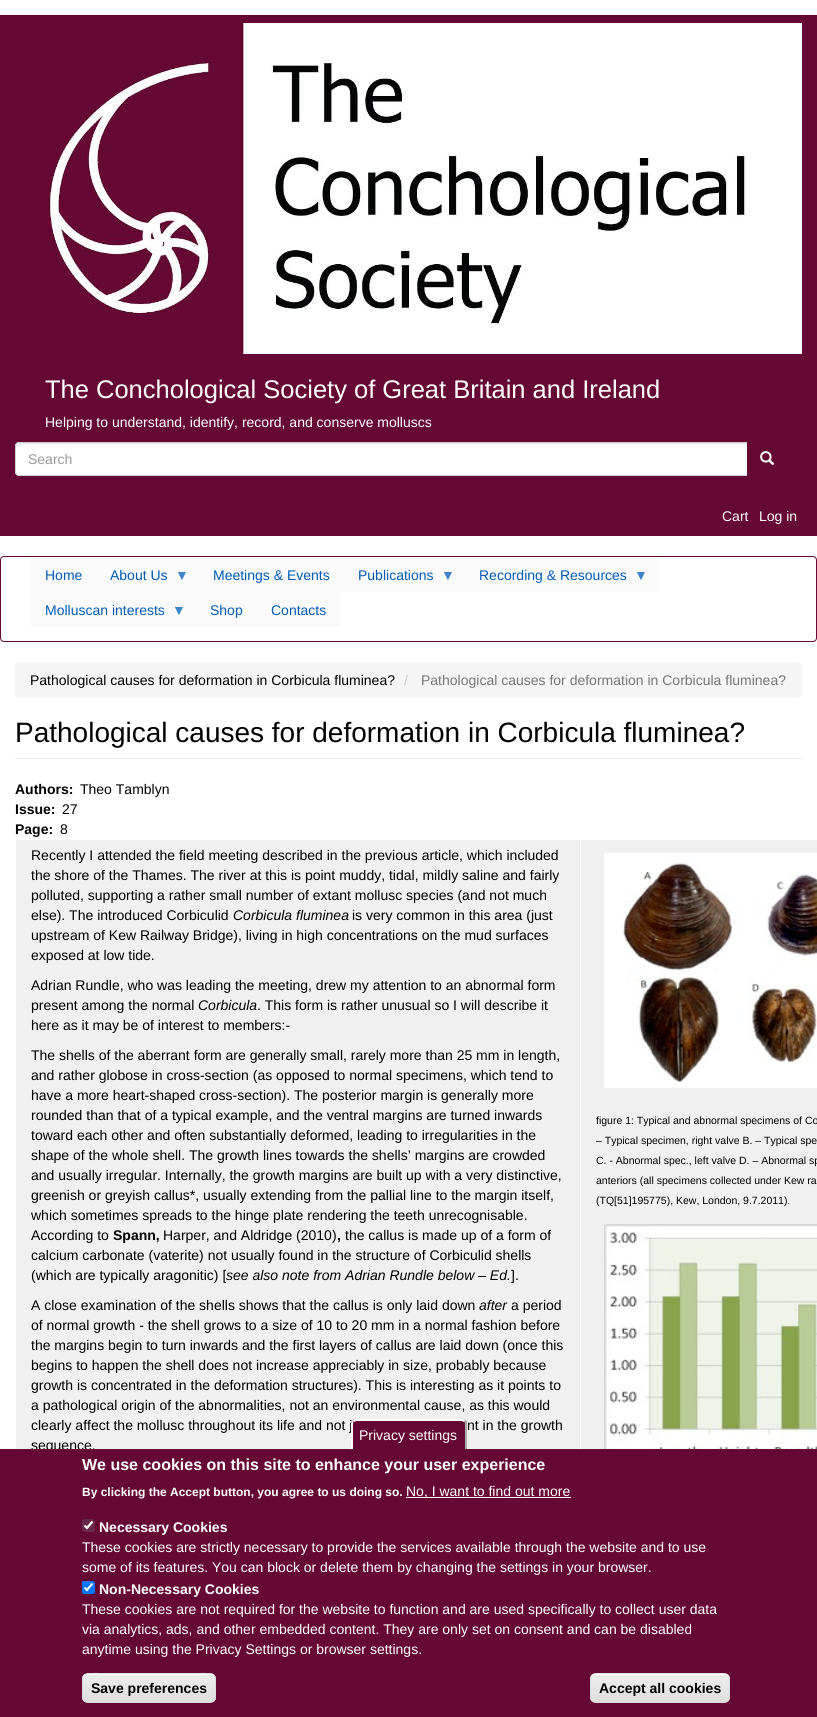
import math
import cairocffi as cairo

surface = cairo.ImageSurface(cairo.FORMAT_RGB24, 817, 1717)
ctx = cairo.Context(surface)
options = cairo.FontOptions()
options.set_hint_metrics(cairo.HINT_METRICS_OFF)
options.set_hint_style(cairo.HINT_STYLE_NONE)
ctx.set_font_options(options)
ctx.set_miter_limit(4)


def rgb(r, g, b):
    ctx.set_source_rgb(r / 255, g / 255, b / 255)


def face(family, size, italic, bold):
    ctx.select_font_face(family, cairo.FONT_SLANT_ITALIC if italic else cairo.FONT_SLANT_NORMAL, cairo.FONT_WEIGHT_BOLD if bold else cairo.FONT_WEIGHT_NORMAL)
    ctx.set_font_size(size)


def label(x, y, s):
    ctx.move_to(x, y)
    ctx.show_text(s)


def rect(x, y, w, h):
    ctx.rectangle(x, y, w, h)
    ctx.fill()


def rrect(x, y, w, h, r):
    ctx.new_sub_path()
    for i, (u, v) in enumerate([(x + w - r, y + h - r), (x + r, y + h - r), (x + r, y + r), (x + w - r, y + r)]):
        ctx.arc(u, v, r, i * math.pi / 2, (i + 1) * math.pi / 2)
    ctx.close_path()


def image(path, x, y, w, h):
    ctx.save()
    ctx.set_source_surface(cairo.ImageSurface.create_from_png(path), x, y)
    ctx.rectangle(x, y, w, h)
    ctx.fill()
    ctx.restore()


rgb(255, 255, 255)
ctx.paint()
rgb(101, 8, 52)
rect(0, 15, 817, 521)
image('image0.png', 43, 23, 759, 331)
face('Liberation Sans', 25.5, 0, 0)
rgb(255, 255, 255)
label(45, 398, 'The Conchological Society of Great Britain and Ireland')
face('Liberation Sans', 14, 0, 0)
label(45, 427, 'Helping to understand, identify, record, and conserve molluscs')
ctx.new_path()
ctx.move_to(19, 442)
ctx.line_to(748, 442)
ctx.line_to(748, 476)
ctx.line_to(19, 476)
ctx.curve_to(17, 476, 15, 474, 15, 472)
ctx.line_to(15, 446)
ctx.curve_to(15, 444, 17, 442, 19, 442)
ctx.close_path()
ctx.fill()
rgb(236, 236, 236)
ctx.new_path()
ctx.move_to(19, 444)
ctx.line_to(747, 444)
ctx.line_to(747, 443)
ctx.line_to(19, 443)
ctx.curve_to(17, 443, 16, 445, 16, 447)
ctx.curve_to(16, 445, 17, 444, 19, 444)
ctx.close_path()
ctx.fill()
ctx.new_path()
ctx.move_to(19, 442.5)
ctx.line_to(747.5, 442.5)
ctx.line_to(747.5, 475.5)
ctx.line_to(19, 475.5)
ctx.curve_to(17, 475.5, 15.5, 474, 15.5, 472)
ctx.line_to(15.5, 446)
ctx.curve_to(15.5, 444, 17, 442.5, 19, 442.5)
ctx.close_path()
rgb(204, 204, 204)
ctx.set_line_width(1)
ctx.stroke()
rgb(153, 153, 153)
label(28, 464, 'Search')
rgb(101, 8, 52)
ctx.new_path()
ctx.move_to(747, 442)
ctx.line_to(783, 442)
ctx.curve_to(785, 442, 787, 444, 787, 446)
ctx.line_to(787, 472)
ctx.curve_to(787, 474, 785, 476, 783, 476)
ctx.line_to(747, 476)
ctx.close_path()
ctx.fill()
image('image1.png', 760, 451, 15, 14)
rgb(255, 255, 255)
label(722, 521, 'Cart')
label(759, 521, 'Log in')
rrect(0.5, 556.5, 816, 85, 3.5)
rgb(101, 8, 52)
ctx.stroke()
rgb(250, 250, 250)
rect(31, 557, 628, 35)
rgb(0, 91, 183)
label(45, 580, 'Home')
label(110, 580, 'About Us')
rgb(63, 131, 200)
label(175, 580, '▼')
rgb(0, 91, 183)
label(213, 580, 'Meetings & Events')
label(358, 580, 'Publications')
rgb(63, 131, 200)
label(441, 580, '▼')
rgb(0, 91, 183)
label(479, 580, 'Recording & Resources')
rgb(63, 131, 200)
label(634, 580, '▼')
rgb(250, 250, 250)
rect(31, 592, 309, 35)
rgb(0, 91, 183)
label(45, 615, 'Molluscan interests')
rgb(63, 131, 200)
label(172, 615, '▼')
rgb(0, 91, 183)
label(210, 615, 'Shop')
label(271, 615, 'Contacts')
rgb(245, 245, 245)
rrect(15, 662, 787, 36, 4)
ctx.fill()
rgb(0, 0, 0)
label(30, 685, 'Pathological causes for deformation in Corbicula fluminea?')
rgb(204, 204, 204)
label(404, 685, '/')
rgb(119, 119, 119)
label(421, 685, 'Pathological causes for deformation in Corbicula fluminea?')
rgb(238, 238, 238)
rect(15, 758, 787, 1)
face('Liberation Sans', 28, 0, 0)
rgb(0, 0, 0)
label(15, 742, 'Pathological causes for deformation in Corbicula fluminea?')
face('Liberation Sans', 14, 0, 1)
label(15, 794, 'Authors:')
face('Liberation Sans', 14, 0, 0)
label(80, 794, 'Theo Tamblyn')
face('Liberation Sans', 14, 0, 1)
label(15, 814, 'Issue:')
face('Liberation Sans', 14, 0, 0)
label(62, 814, '27')
face('Liberation Sans', 14, 0, 1)
label(15, 834, 'Page:')
face('Liberation Sans', 14, 0, 0)
label(60, 834, '8')
rgb(240, 240, 240)
rect(16, 840, 801, 609)
rgb(0, 0, 0)
label(31, 860, 'Recently I attended the field meeting described in the previous article, which included')
label(31, 880, 'the shore of the Thames. The river at this is point muddy, tidal, mildly saline and fairly')
label(31, 900, 'polluted, supporting a rather small number of extant mollusc species (and not much')
label(31, 920, 'else). The introduced Corbiculid')
face('Liberation Sans', 14, 1, 0)
label(233, 920, 'Corbicula fluminea')
face('Liberation Sans', 14, 0, 0)
label(352, 920, 'is very common in this area (just')
label(31, 940, 'upstream of Kew Railway Bridge), living in high concentrations on the mud surfaces')
label(31, 960, 'exposed at low tide.')
label(31, 990, 'Adrian Rundle, who was leading the meeting, drew my attention to an abnormal form')
label(31, 1010, 'present among the normal')
face('Liberation Sans', 14, 1, 0)
label(198, 1010, 'Corbicula')
face('Liberation Sans', 14, 0, 0)
label(257, 1010, '. This form is rather unusual so I will describe it')
label(31, 1030, 'here as it may be of interest to members:-')
label(31, 1060, 'The shells of the aberrant form are generally small, rarely more than 25 mm in length,')
label(31, 1080, 'and rather globose in cross-section (as opposed to normal specimens, which tend to')
label(31, 1100, 'have a more heart-shaped cross-section). The posterior margin is generally more')
label(31, 1120, 'rounded than that of a typical example, and the ventral margins are turned inwards')
label(31, 1140, 'toward each other and often substantially deformed, leading to irregularities in the')
label(31, 1160, 'shape of the whole shell. The growth lines towards the shells’ margins are crowded')
label(31, 1180, 'and usually irregular. Internally, the growth margins are built up with a very distinctive,')
label(31, 1200, 'greenish or greyish callus*, usually extending from the pallial line to the margin itself,')
label(31, 1220, 'which sometimes spreads to the hinge plate rendering the teeth unrecognisable.')
label(31, 1240, 'According to')
face('Liberation Sans', 14, 0, 1)
label(113, 1240, 'Spann,')
face('Liberation Sans', 14, 0, 0)
label(163, 1240, 'Harper, and Aldridge (2010)')
face('Liberation Sans', 14, 0, 1)
label(337, 1240, ',')
face('Liberation Sans', 14, 0, 0)
label(345, 1240, 'the callus is made up of a form of')
label(31, 1260, 'calcium carbonate (vaterite) not usually found in the structure of Corbiculid shells')
label(31, 1280, '(which are typically aragonitic) [')
face('Liberation Sans', 14, 1, 0)
label(226, 1280, 'see also note from Adrian Rundle below – Ed.')
face('Liberation Sans', 14, 0, 0)
label(511, 1280, '].')
label(31, 1310, 'A close examination of the shells shows that the callus is only laid down')
face('Liberation Sans', 14, 1, 0)
label(479, 1310, 'after')
face('Liberation Sans', 14, 0, 0)
label(511, 1310, 'a period')
label(31, 1330, 'of normal growth - the shell grows to a size of 10 to 20 mm in a normal fashion before')
label(31, 1350, 'the margins begin to turn inwards and the first layers of callus are laid down (once this')
label(31, 1370, 'begins to happen the shell does not increase appreciably in size, probably because')
label(31, 1390, 'growth is concentrated in the deformation structures). This is interesting as it points to')
label(31, 1410, 'a pathological origin of the abnormalities, not an environmental cause, as this would')
label(31, 1430, 'clearly affect the mollusc throughout its life and not j')
label(467, 1430, 'nt in the growth')
label(31, 1450, 'sequence.')
rgb(255, 255, 255)
rect(580, 839, 1, 610)
image('image2.png', 604, 853, 213, 235)
face('Liberation Sans', 10.5, 0, 0)
rgb(0, 0, 0)
label(596, 1124, 'figure 1: Typical and abnormal specimens of Co')
label(596, 1144, '– Typical specimen, right valve B. – Typical spe')
label(596, 1164, 'C. - Abnormal spec., left valve D. – Abnormal sp')
label(596, 1184, 'anteriors (all specimens collected under Kew ra')
label(596, 1204, '(TQ[51]195775), Kew, London, 9.7.2011).')
image('image3.png', 604, 1224, 213, 225)
rgb(101, 8, 52)
rect(0, 1449, 817, 268)
ctx.new_path()
ctx.move_to(356, 1419)
ctx.line_to(462, 1419)
ctx.curve_to(465, 1419, 467, 1421, 467, 1424)
ctx.line_to(467, 1449)
ctx.line_to(351, 1449)
ctx.line_to(351, 1424)
ctx.curve_to(351, 1421, 353, 1419, 356, 1419)
ctx.close_path()
ctx.fill()
rgb(255, 255, 255)
ctx.new_path()
ctx.move_to(356, 1419)
ctx.line_to(463, 1419)
ctx.line_to(466, 1420)
ctx.line_to(464, 1422)
ctx.line_to(462, 1421)
ctx.line_to(356, 1421)
ctx.line_to(354, 1422)
ctx.line_to(352, 1420)
ctx.curve_to(353, 1420, 354, 1419, 356, 1419)
ctx.close_path()
ctx.fill()
rgb(170, 170, 170)
ctx.new_path()
ctx.move_to(464, 1421.5)
ctx.line_to(465.5, 1420.5)
ctx.curve_to(466.5, 1421, 467, 1422, 467, 1423.5)
ctx.line_to(467, 1449)
ctx.line_to(465, 1449)
ctx.line_to(465, 1424)
ctx.curve_to(465, 1423, 464.5, 1422, 464, 1421.5)
ctx.close_path()
ctx.fill()
rgb(255, 255, 255)
ctx.new_path()
ctx.move_to(351, 1449)
ctx.line_to(353, 1449)
ctx.line_to(353, 1424)
ctx.curve_to(353, 1423, 353, 1422.5, 353.5, 1422)
ctx.line_to(352.5, 1420.5)
ctx.curve_to(351.5, 1421.5, 351, 1422.5, 351, 1424)
ctx.close_path()
ctx.fill()
face('Liberation Sans', 14, 0, 0)
label(359, 1440, 'Privacy settings')
face('Liberation Sans', 16, 0, 1)
label(82, 1470, 'We use cookies on this site to enhance your user experience')
face('Liberation Sans', 12, 0, 1)
label(82, 1496, 'By clicking the Accept button, you agree to us doing so.')
rect(406, 1497, 165, 1)
face('Liberation Sans', 14, 0, 0)
label(406, 1496, 'No, I want to find out more')
rgb(106, 41, 72)
rrect(82, 1519, 13, 13, 2)
ctx.fill()
ctx.new_path()
ctx.move_to(84.5, 1525.5)
ctx.line_to(87, 1528)
ctx.line_to(92.5, 1521.5)
rgb(255, 255, 255)
ctx.set_line_width(2.1)
ctx.stroke()
face('Liberation Sans', 14, 0, 1)
label(99, 1532, 'Necessary Cookies')
face('Liberation Sans', 14, 0, 0)
label(82, 1552, 'These cookies are strictly necessary to provide the services available through the website and to use')
label(82, 1572, 'some of its features. You can block or delete them by changing the settings in your browser.')
rgb(0, 117, 255)
rrect(82, 1581, 13, 13, 2)
ctx.fill()
ctx.new_path()
ctx.move_to(84.5, 1587.5)
ctx.line_to(87, 1590)
ctx.line_to(92.5, 1583.5)
rgb(255, 255, 255)
ctx.stroke()
face('Liberation Sans', 14, 0, 1)
label(99, 1594, 'Non-Necessary Cookies')
face('Liberation Sans', 14, 0, 0)
label(82, 1614, 'These cookies are not required for the website to function and are used specifically to collect user data')
label(82, 1634, 'via analytics, ads, and other embedded content. They are only set on consent and can be disabled')
label(82, 1654, 'anytime using the Privacy Settings or browser settings.')
ctx.save()
rrect(82, 1673, 134, 30, 6)
ctx.clip()
gradient = cairo.LinearGradient(149, 1674, 149, 1702)
gradient.add_color_stop_rgba(0.05, 0.929, 0.929, 0.929, 1)
gradient.add_color_stop_rgba(1, 0.875, 0.875, 0.875, 1)
ctx.set_source(gradient)
rect(82, 1674, 134, 28)
ctx.restore()
ctx.new_path()
ctx.move_to(88, 1675)
ctx.line_to(210, 1675)
ctx.curve_to(213, 1675, 215, 1677, 215, 1680)
ctx.curve_to(215, 1669, 193, 1674, 190, 1674)
ctx.line_to(108, 1674)
ctx.curve_to(105, 1674, 83, 1669, 83, 1680)
ctx.curve_to(83, 1677, 85, 1675, 88, 1675)
ctx.close_path()
ctx.fill()
rrect(82.5, 1673.5, 133, 29, 5.5)
rgb(220, 220, 220)
ctx.set_line_width(1)
ctx.stroke()
face('Liberation Sans', 14, 0, 1)
rgb(0, 0, 0)
label(91, 1693, 'Save preferences')
ctx.save()
rrect(590, 1673, 140, 30, 6)
ctx.clip()
gradient = cairo.LinearGradient(660, 1674, 660, 1702)
gradient.add_color_stop_rgba(0.05, 0.929, 0.929, 0.929, 1)
gradient.add_color_stop_rgba(1, 0.875, 0.875, 0.875, 1)
ctx.set_source(gradient)
rect(590, 1674, 140, 28)
ctx.restore()
rgb(255, 255, 255)
ctx.new_path()
ctx.move_to(596, 1675)
ctx.line_to(724, 1675)
ctx.curve_to(727, 1675, 729, 1677, 729, 1680)
ctx.line_to(729, 1679)
ctx.curve_to(729, 1676, 727, 1674, 724, 1674)
ctx.line_to(596, 1674)
ctx.curve_to(593, 1674, 591, 1676, 591, 1679)
ctx.line_to(591, 1680)
ctx.curve_to(591, 1677, 593, 1675, 596, 1675)
ctx.close_path()
ctx.fill()
rrect(590.5, 1673.5, 139, 29, 5.5)
rgb(220, 220, 220)
ctx.stroke()
rgb(0, 0, 0)
label(599, 1693, 'Accept all cookies')
surface.write_to_png('render.png')
